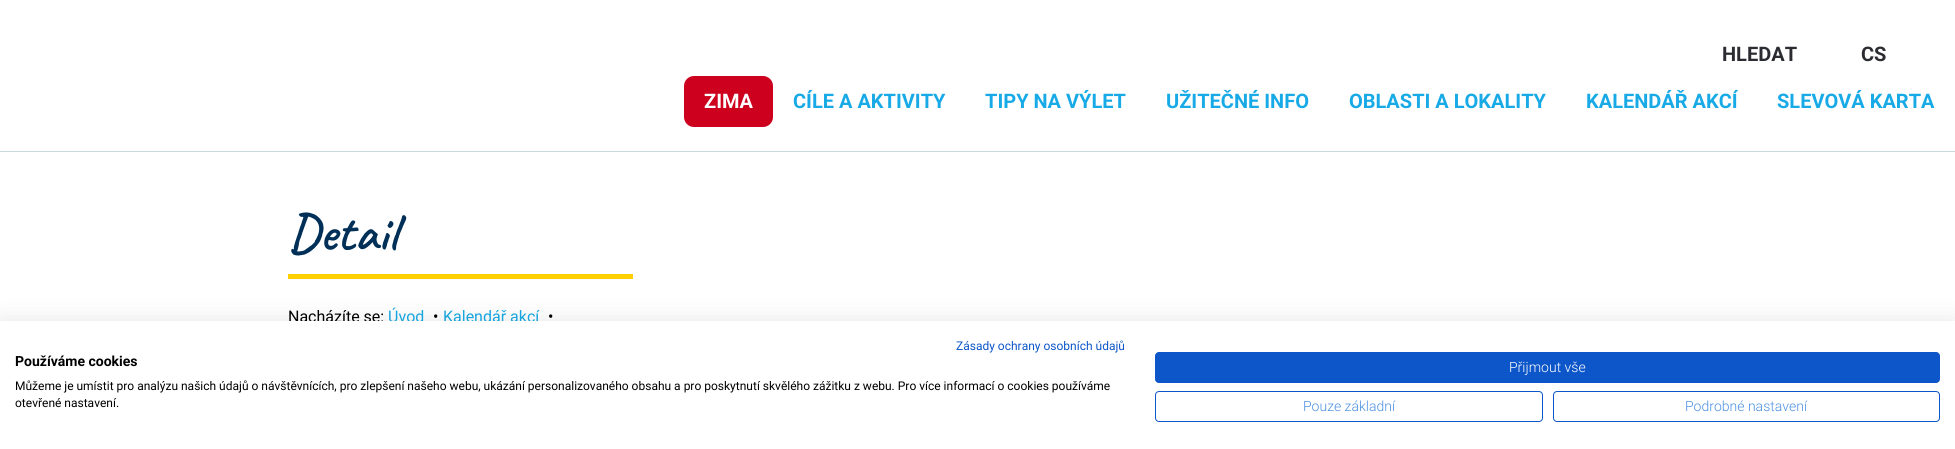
import math
import cairocffi as cairo

surface = cairo.ImageSurface(cairo.FORMAT_RGB24, 1955, 449)
ctx = cairo.Context(surface)
options = cairo.FontOptions()
options.set_hint_metrics(cairo.HINT_METRICS_OFF)
options.set_hint_style(cairo.HINT_STYLE_NONE)
ctx.set_font_options(options)
ctx.set_miter_limit(4)


def rgb(r, g, b):
    ctx.set_source_rgb(r / 255, g / 255, b / 255)


def face(family, size, italic, bold):
    ctx.select_font_face(family, cairo.FONT_SLANT_ITALIC if italic else cairo.FONT_SLANT_NORMAL, cairo.FONT_WEIGHT_BOLD if bold else cairo.FONT_WEIGHT_NORMAL)
    ctx.set_font_size(size)


def label(x, y, s):
    ctx.move_to(x, y)
    ctx.show_text(s)


def rect(x, y, w, h):
    ctx.rectangle(x, y, w, h)
    ctx.fill()


def rrect(x, y, w, h, r):
    ctx.new_sub_path()
    for i, (u, v) in enumerate([(x + w - r, y + h - r), (x + r, y + h - r), (x + r, y + r), (x + w - r, y + r)]):
        ctx.arc(u, v, r, i * math.pi / 2, (i + 1) * math.pi / 2)
    ctx.close_path()


def soft_shadow(x, y, w, h, r, blur, alpha):
    ctx.push_group_with_content(cairo.CONTENT_ALPHA)
    ctx.set_operator(cairo.OPERATOR_SOURCE)
    for i in range(15, -16, -2):
        e = blur * i / 6
        if min(w, h) + 2 * e > 0:
            ctx.set_source_rgba(0, 0, 0, alpha * math.erfc((i - 1) / 8.5) / 2)
            rrect(x - e, y - e, w + 2 * e, h + 2 * e, max(0, min(r + e + blur * .6, min(w, h) / 2 + e)))
            ctx.fill()
    ctx.mask(ctx.pop_group())


rgb(255, 255, 255)
ctx.paint()
rgb(200, 216, 222)
rect(0, 151, 1955, 1)
face('Roboto', 20, 0, 1)
rgb(43, 44, 49)
label(1722, 61, 'HLEDAT')
label(1861, 61, 'CS')
rgb(205, 0, 29)
rrect(684, 76, 89, 51, 10)
ctx.fill()
rgb(255, 255, 255)
label(704, 108, 'ZIMA')
rgb(23, 170, 230)
label(793, 108, 'CÍLE A AKTIVITY')
label(985, 108, 'TIPY NA VÝLET')
label(1166, 108, 'UŽITEČNÉ INFO')
label(1349, 108, 'OBLASTI A LOKALITY')
label(1586, 108, 'KALENDÁŘ AKCÍ')
label(1777, 108, 'SLEVOVÁ KARTA')
face('Caveat SemiBold', 53, 0, 0)
rgb(0, 48, 87)
label(288, 250, 'Detail')
rgb(255, 208, 0)
rect(288, 274, 345, 5)
face('Roboto', 16, 0, 0)
rgb(0, 0, 0)
label(288, 322, 'Nacházíte se:')
rgb(23, 170, 230)
label(388, 322, 'Úvod')
rgb(0, 0, 0)
label(433, 322, '•')
rgb(23, 170, 230)
label(443, 322, 'Kalendář akcí')
rgb(0, 0, 0)
label(548, 322, '•')
rgb(0, 0, 0)
soft_shadow(0, 321, 1955, 128, 0, 12, 0.1)
rgb(255, 255, 255)
rect(0, 321, 1955, 128)
face('Roboto', 12, 0, 0)
rgb(13, 86, 201)
label(956, 350, 'Zásady ochrany osobních údajů')
face('Roboto', 14, 0, 1)
rgb(0, 0, 0)
label(15, 366, 'Používáme cookies')
face('Roboto', 12, 0, 0)
label(15, 390, 'Můžeme je umístit pro analýzu našich údajů o návštěvnících, pro zlepšení našeho webu, ukázání personalizovaného obsahu a pro poskytnutí skvělého zážitku z webu. Pro více informací o cookies používáme')
label(15, 407, 'otevřené nastavení.')
rgb(13, 86, 201)
rrect(1155.5, 352.5, 784, 30, 3.5)
ctx.fill_preserve()
ctx.set_line_width(1)
ctx.stroke()
face('Roboto Light', 14, 0, 0)
rgb(255, 255, 255)
label(1509, 372, 'Přijmout vše')
rrect(1155.5, 391.5, 387, 30, 3.5)
rgb(13, 86, 201)
ctx.stroke()
rgb(74, 144, 226)
label(1303, 411, 'Pouze základní')
rrect(1553.5, 391.5, 386, 30, 3.5)
rgb(13, 86, 201)
ctx.stroke()
rgb(74, 144, 226)
label(1685, 411, 'Podrobné nastavení')
surface.write_to_png('render.png')
